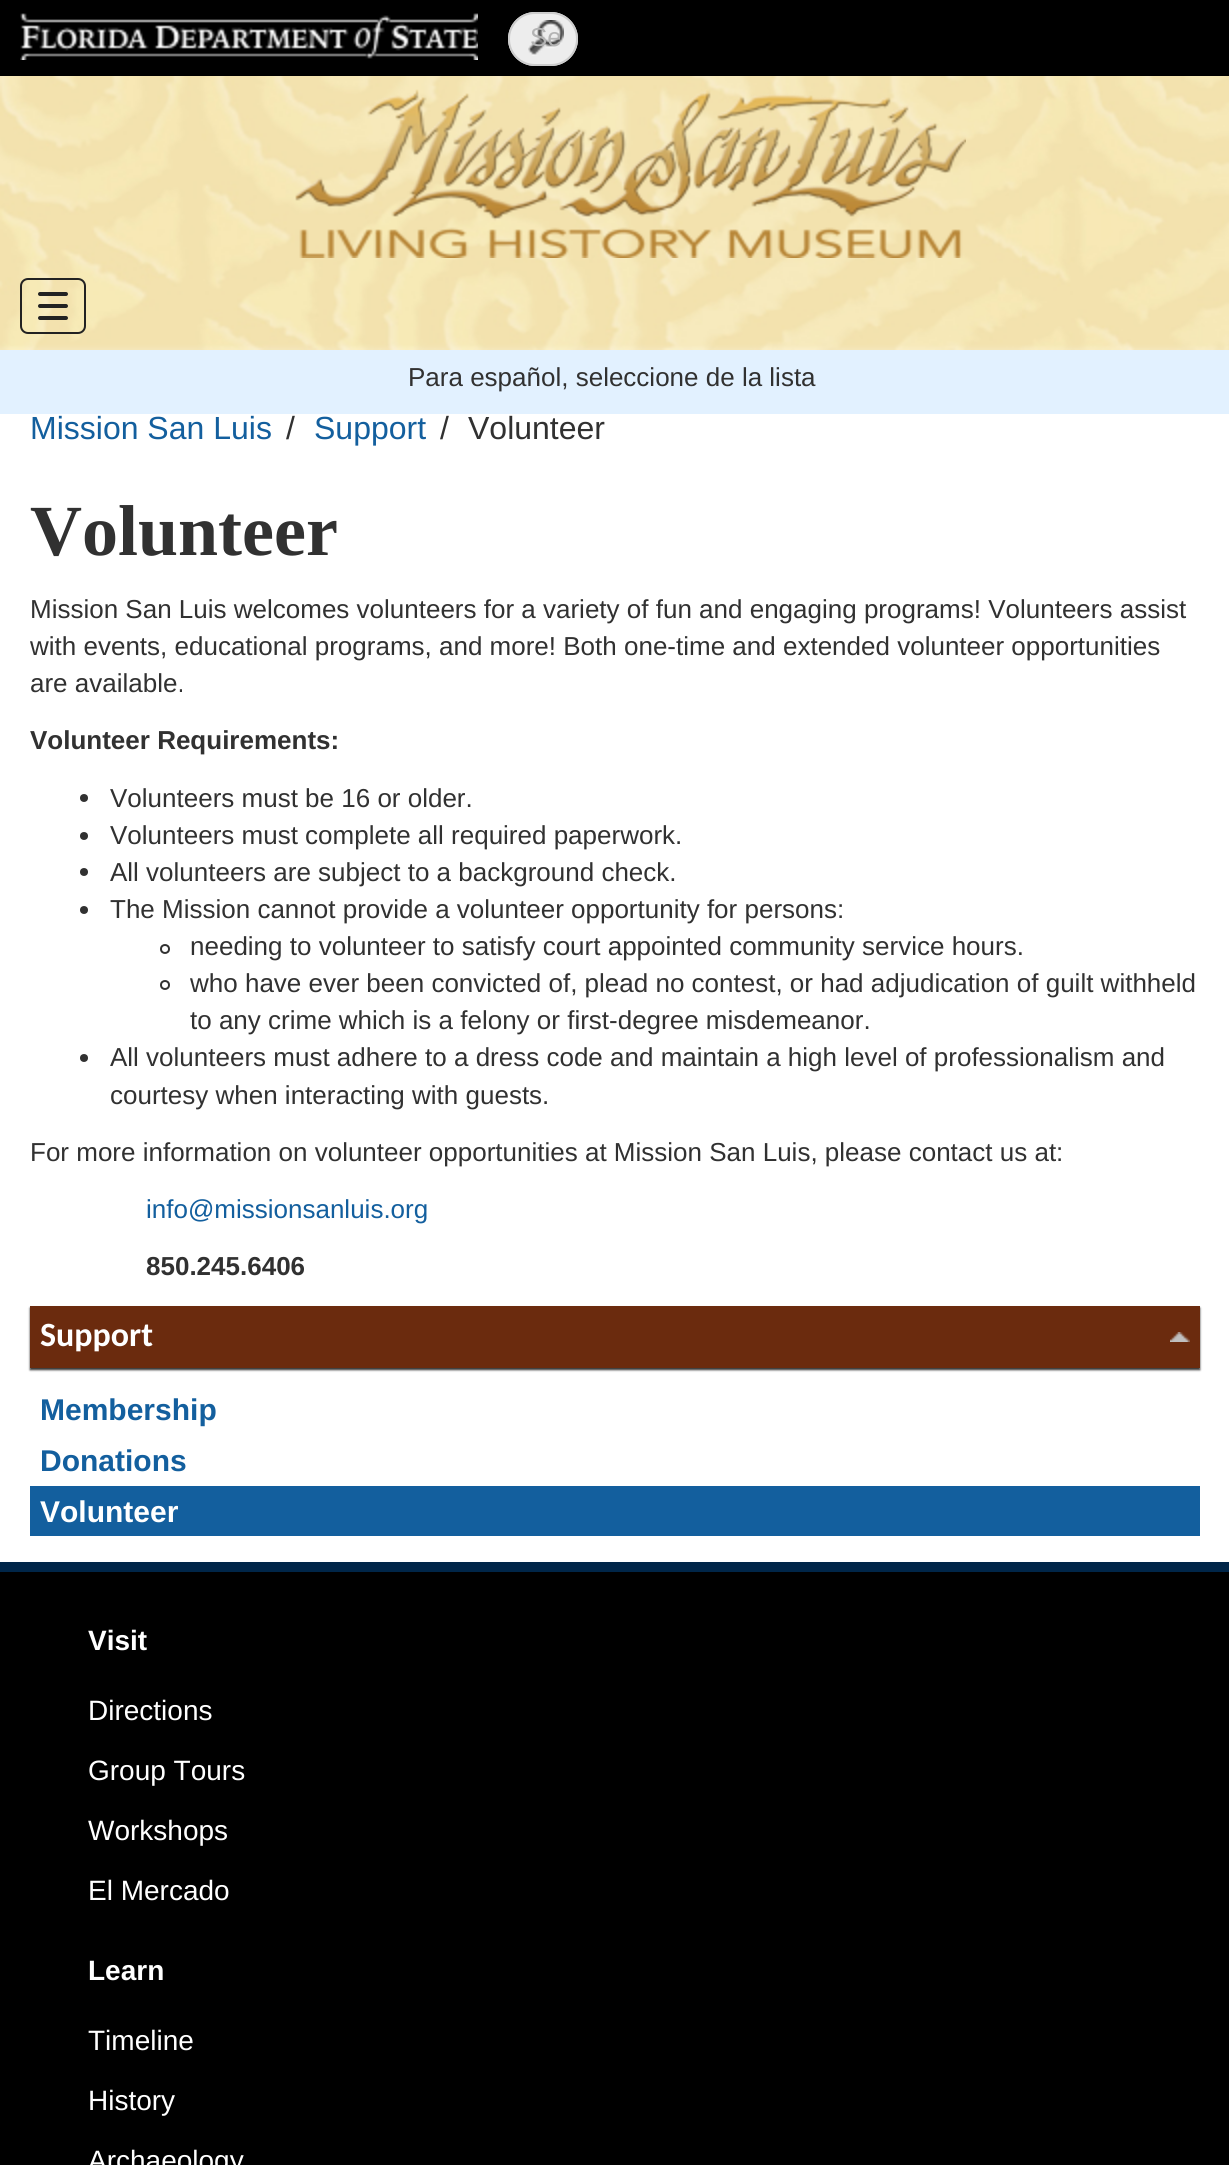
import math
import cairocffi as cairo

surface = cairo.ImageSurface(cairo.FORMAT_RGB24, 1229, 2165)
ctx = cairo.Context(surface)
options = cairo.FontOptions()
options.set_hint_metrics(cairo.HINT_METRICS_OFF)
options.set_hint_style(cairo.HINT_STYLE_NONE)
ctx.set_font_options(options)
ctx.set_miter_limit(4)


def rgb(r, g, b):
    ctx.set_source_rgb(r / 255, g / 255, b / 255)


def face(family, size, italic, bold):
    ctx.select_font_face(family, cairo.FONT_SLANT_ITALIC if italic else cairo.FONT_SLANT_NORMAL, cairo.FONT_WEIGHT_BOLD if bold else cairo.FONT_WEIGHT_NORMAL)
    ctx.set_font_size(size)


def label(x, y, s):
    ctx.move_to(x, y)
    ctx.show_text(s)


def rect(x, y, w, h):
    ctx.rectangle(x, y, w, h)
    ctx.fill()


def rrect(x, y, w, h, r):
    ctx.new_sub_path()
    for i, (u, v) in enumerate([(x + w - r, y + h - r), (x + r, y + h - r), (x + r, y + r), (x + w - r, y + r)]):
        ctx.arc(u, v, r, i * math.pi / 2, (i + 1) * math.pi / 2)
    ctx.close_path()


def soft_shadow(x, y, w, h, r, blur, alpha):
    ctx.push_group_with_content(cairo.CONTENT_ALPHA)
    ctx.set_operator(cairo.OPERATOR_SOURCE)
    for i in range(15, -16, -2):
        e = blur * i / 6
        if min(w, h) + 2 * e > 0:
            ctx.set_source_rgba(0, 0, 0, alpha * math.erfc((i - 1) / 8.5) / 2)
            rrect(x - e, y - e, w + 2 * e, h + 2 * e, max(0, min(r + e + blur * .6, min(w, h) / 2 + e)))
            ctx.fill()
    ctx.mask(ctx.pop_group())


def image(path, x, y, w, h):
    ctx.save()
    ctx.set_source_surface(cairo.ImageSurface.create_from_png(path), x, y)
    ctx.rectangle(x, y, w, h)
    ctx.fill()
    ctx.restore()


rgb(226, 241, 255)
ctx.paint()
rgb(0, 0, 0)
rect(0, 0, 1229, 76)
rgb(255, 255, 255)
rect(20, 13, 458, 47)
image('image0.png', 20, 12, 458, 48)
rgb(237, 237, 237)
rrect(508, 12, 70, 54, 27)
ctx.fill()
image('image1.png', 528, 20, 36, 36)
rrect(509, 13, 68, 52, 26)
rgb(204, 204, 204)
ctx.stroke()
ctx.save()
ctx.rectangle(530, 22, 30, 30)
ctx.clip()
face('Liberation Sans', 26, 0, 0)
rgb(180, 180, 180)
label(530, 46, 'Se')
ctx.restore()
image('image2.png', 0, 76, 1229, 274)
image('image3.png', 295, 89, 671, 169)
rrect(21, 279, 64, 54, 7)
rgb(34, 34, 34)
ctx.stroke()
rrect(38, 292, 30, 4, 2)
ctx.fill()
rrect(38, 304, 30, 4, 2)
ctx.fill()
rrect(38, 316, 30, 4, 2)
ctx.fill()
face('Liberation Sans', 26, 0, 0)
rgb(49, 49, 49)
label(408, 386, 'Para español, seleccione de la lista')
rgb(255, 255, 255)
rect(0, 414, 1229, 1148)
face('Liberation Sans', 32, 0, 0)
rgb(19, 95, 158)
label(30, 439, 'Mission San Luis')
rgb(49, 49, 49)
label(286, 439, '/')
rgb(19, 95, 158)
label(314, 439, 'Support')
rgb(49, 49, 49)
label(440, 439, '/')
label(468, 439, 'Volunteer')
face('Liberation Serif', 72, 0, 1)
label(30, 555, 'Volunteer')
face('Liberation Sans', 26, 0, 0)
label(30, 618, 'Mission San Luis welcomes volunteers for a variety of fun and engaging programs! Volunteers assist')
label(30, 655, 'with events, educational programs, and more! Both one-time and extended volunteer opportunities')
label(30, 692, 'are available.')
face('Liberation Sans', 26, 0, 1)
label(30, 749, 'Volunteer Requirements:')
ctx.new_path()
ctx.arc(84, 798, 4, 0, 2 * math.pi)
ctx.fill()
face('Liberation Sans', 26, 0, 0)
label(110, 807, 'Volunteers must be 16 or older.')
ctx.new_path()
ctx.arc(84, 836, 4, 0, 2 * math.pi)
ctx.fill()
label(110, 844, 'Volunteers must complete all required paperwork.')
ctx.new_path()
ctx.arc(84, 872, 4, 0, 2 * math.pi)
ctx.fill()
label(110, 881, 'All volunteers are subject to a background check.')
ctx.new_path()
ctx.arc(84, 910, 4, 0, 2 * math.pi)
ctx.fill()
label(110, 918, 'The Mission cannot provide a volunteer opportunity for persons:')
ctx.new_path()
ctx.arc(165, 949, 4, 0, 2 * math.pi)
ctx.stroke()
label(190, 955, 'needing to volunteer to satisfy court appointed community service hours.')
ctx.new_path()
ctx.arc(165, 985, 4, 0, 2 * math.pi)
ctx.stroke()
label(190, 992, 'who have ever been convicted of, plead no contest, or had adjudication of guilt withheld')
label(190, 1029, 'to any crime which is a felony or first-degree misdemeanor.')
ctx.new_path()
ctx.arc(84, 1058, 4, 0, 2 * math.pi)
ctx.fill()
label(110, 1066, 'All volunteers must adhere to a dress code and maintain a high level of professionalism and')
label(110, 1104, 'courtesy when interacting with guests.')
label(30, 1161, 'For more information on volunteer opportunities at Mission San Luis, please contact us at:')
rgb(19, 95, 158)
label(146, 1218, 'info@missionsanluis.org')
face('Liberation Sans', 26, 0, 1)
rgb(49, 49, 49)
label(146, 1275, '850.245.6406')
rgb(51, 51, 51)
soft_shadow(30, 1308, 1170, 62, 0, 1, 1)
rgb(107, 43, 14)
rect(30, 1306, 1170, 62)
image('image4.png', 1170, 1332, 20, 10)
face('Carlito', 34, 0, 1)
rgb(255, 255, 255)
label(40, 1346, 'Support')
face('Liberation Sans', 30, 0, 1)
rgb(19, 95, 158)
label(40, 1420, 'Membership')
label(40, 1471, 'Donations')
rect(30, 1486, 1170, 50)
rgb(255, 255, 255)
label(40, 1522, 'Volunteer')
rgb(0, 0, 0)
rect(0, 1572, 1229, 593)
rgb(0, 38, 73)
rect(0, 1562, 1229, 10)
face('Liberation Sans', 28, 0, 1)
rgb(255, 255, 255)
label(88, 1650, 'Visit')
face('Liberation Sans', 28, 0, 0)
label(88, 1720, 'Directions')
label(88, 1780, 'Group Tours')
label(88, 1840, 'Workshops')
label(88, 1900, 'El Mercado')
face('Liberation Sans', 28, 0, 1)
label(88, 1980, 'Learn')
face('Liberation Sans', 28, 0, 0)
label(88, 2050, 'Timeline')
label(88, 2110, 'History')
label(88, 2170, 'Archaeology')
surface.write_to_png('render.png')
